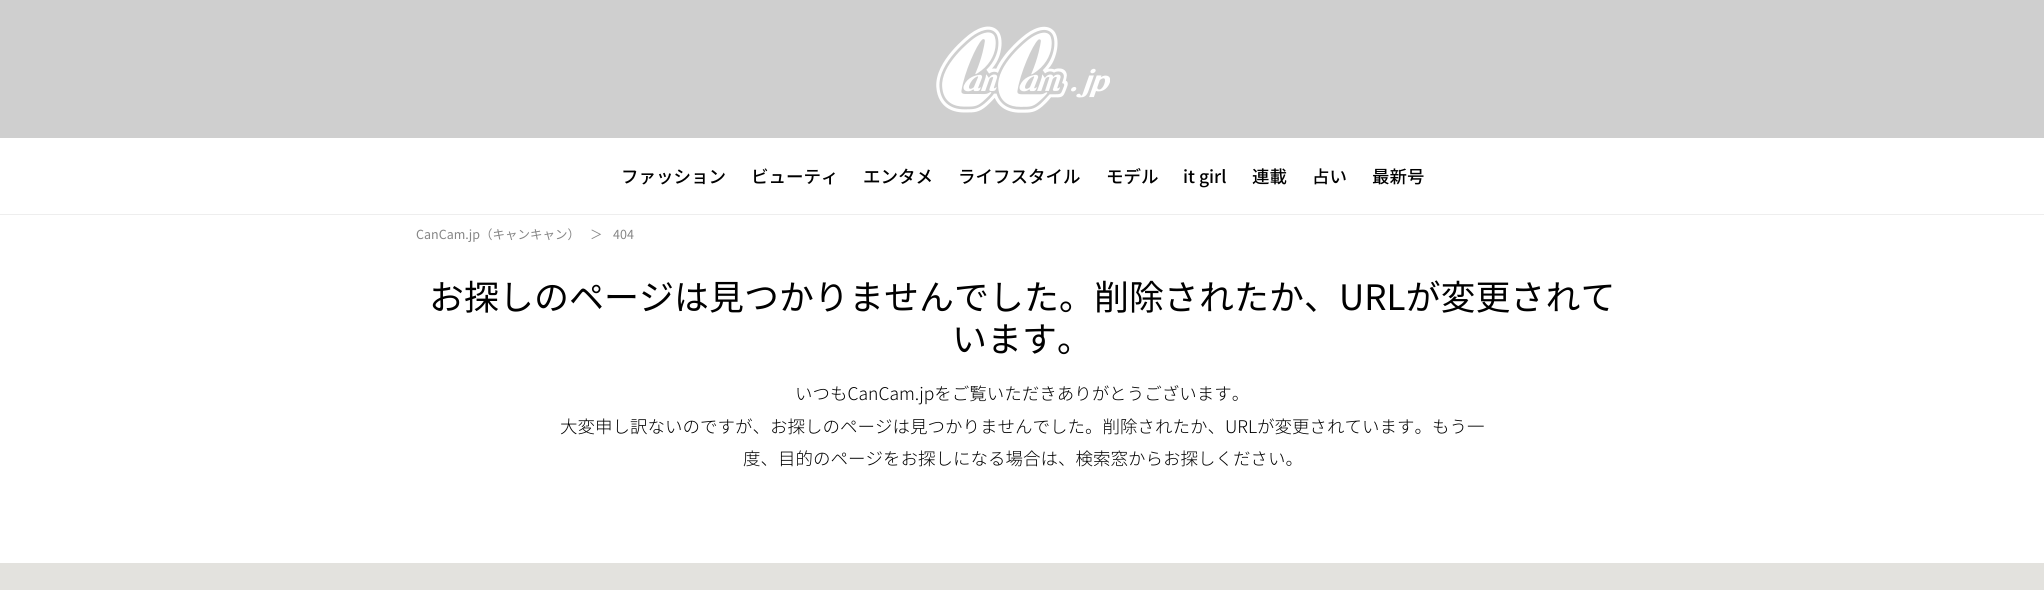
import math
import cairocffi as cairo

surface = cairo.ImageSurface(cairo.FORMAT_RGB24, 2044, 590)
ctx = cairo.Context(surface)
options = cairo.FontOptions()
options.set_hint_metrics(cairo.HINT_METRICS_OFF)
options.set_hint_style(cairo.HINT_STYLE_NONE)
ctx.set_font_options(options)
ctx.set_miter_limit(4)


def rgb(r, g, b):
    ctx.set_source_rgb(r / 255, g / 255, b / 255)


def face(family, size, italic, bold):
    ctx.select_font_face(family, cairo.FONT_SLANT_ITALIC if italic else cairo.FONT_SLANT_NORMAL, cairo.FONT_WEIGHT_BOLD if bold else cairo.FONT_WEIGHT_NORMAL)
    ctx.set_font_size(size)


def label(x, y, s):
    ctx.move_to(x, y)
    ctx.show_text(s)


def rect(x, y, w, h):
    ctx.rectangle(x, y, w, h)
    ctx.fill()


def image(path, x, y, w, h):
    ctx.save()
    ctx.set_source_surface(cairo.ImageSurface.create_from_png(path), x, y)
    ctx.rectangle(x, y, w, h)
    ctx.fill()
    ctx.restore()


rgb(255, 255, 255)
ctx.paint()
rgb(207, 207, 207)
rect(0, 0, 2044, 138)
image('image0.png', 936, 26, 174, 87)
face('Noto Sans CJK JP Medium', 17.5, 0, 0)
rgb(0, 0, 0)
label(621, 183, 'ファッション')
label(751, 183, 'ビューティ')
label(863, 183, 'エンタメ')
label(958, 183, 'ライフスタイル')
label(1106, 183, 'モデル')
label(1183, 183, 'it girl')
label(1252, 183, '連載')
label(1312, 183, '占い')
label(1372, 183, '最新号')
rgb(238, 238, 238)
rect(0, 214, 2044, 1)
face('Noto Sans CJK JP', 12.5, 0, 0)
rgb(133, 133, 133)
label(416, 239, 'CanCam.jp（キャンキャン）')
label(590, 239, '＞')
label(613, 239, '404')
face('Noto Sans CJK JP', 35, 0, 0)
rgb(0, 0, 0)
label(429, 310, 'お探しのページは見つかりませんでした。削除されたか、URLが変更されて')
label(952, 352, 'います。')
face('Noto Sans CJK JP Light', 17.5, 0, 0)
label(795, 400, 'いつもCanCam.jpをご覧いただきありがとうございます。')
label(560, 433, '大変申し訳ないのですが、お探しのページは見つかりませんでした。削除されたか、URLが変更されています。もう一')
label(743, 465, '度、目的のページをお探しになる場合は、検索窓からお探しください。')
rgb(227, 226, 222)
rect(0, 563, 2044, 27)
surface.write_to_png('render.png')
